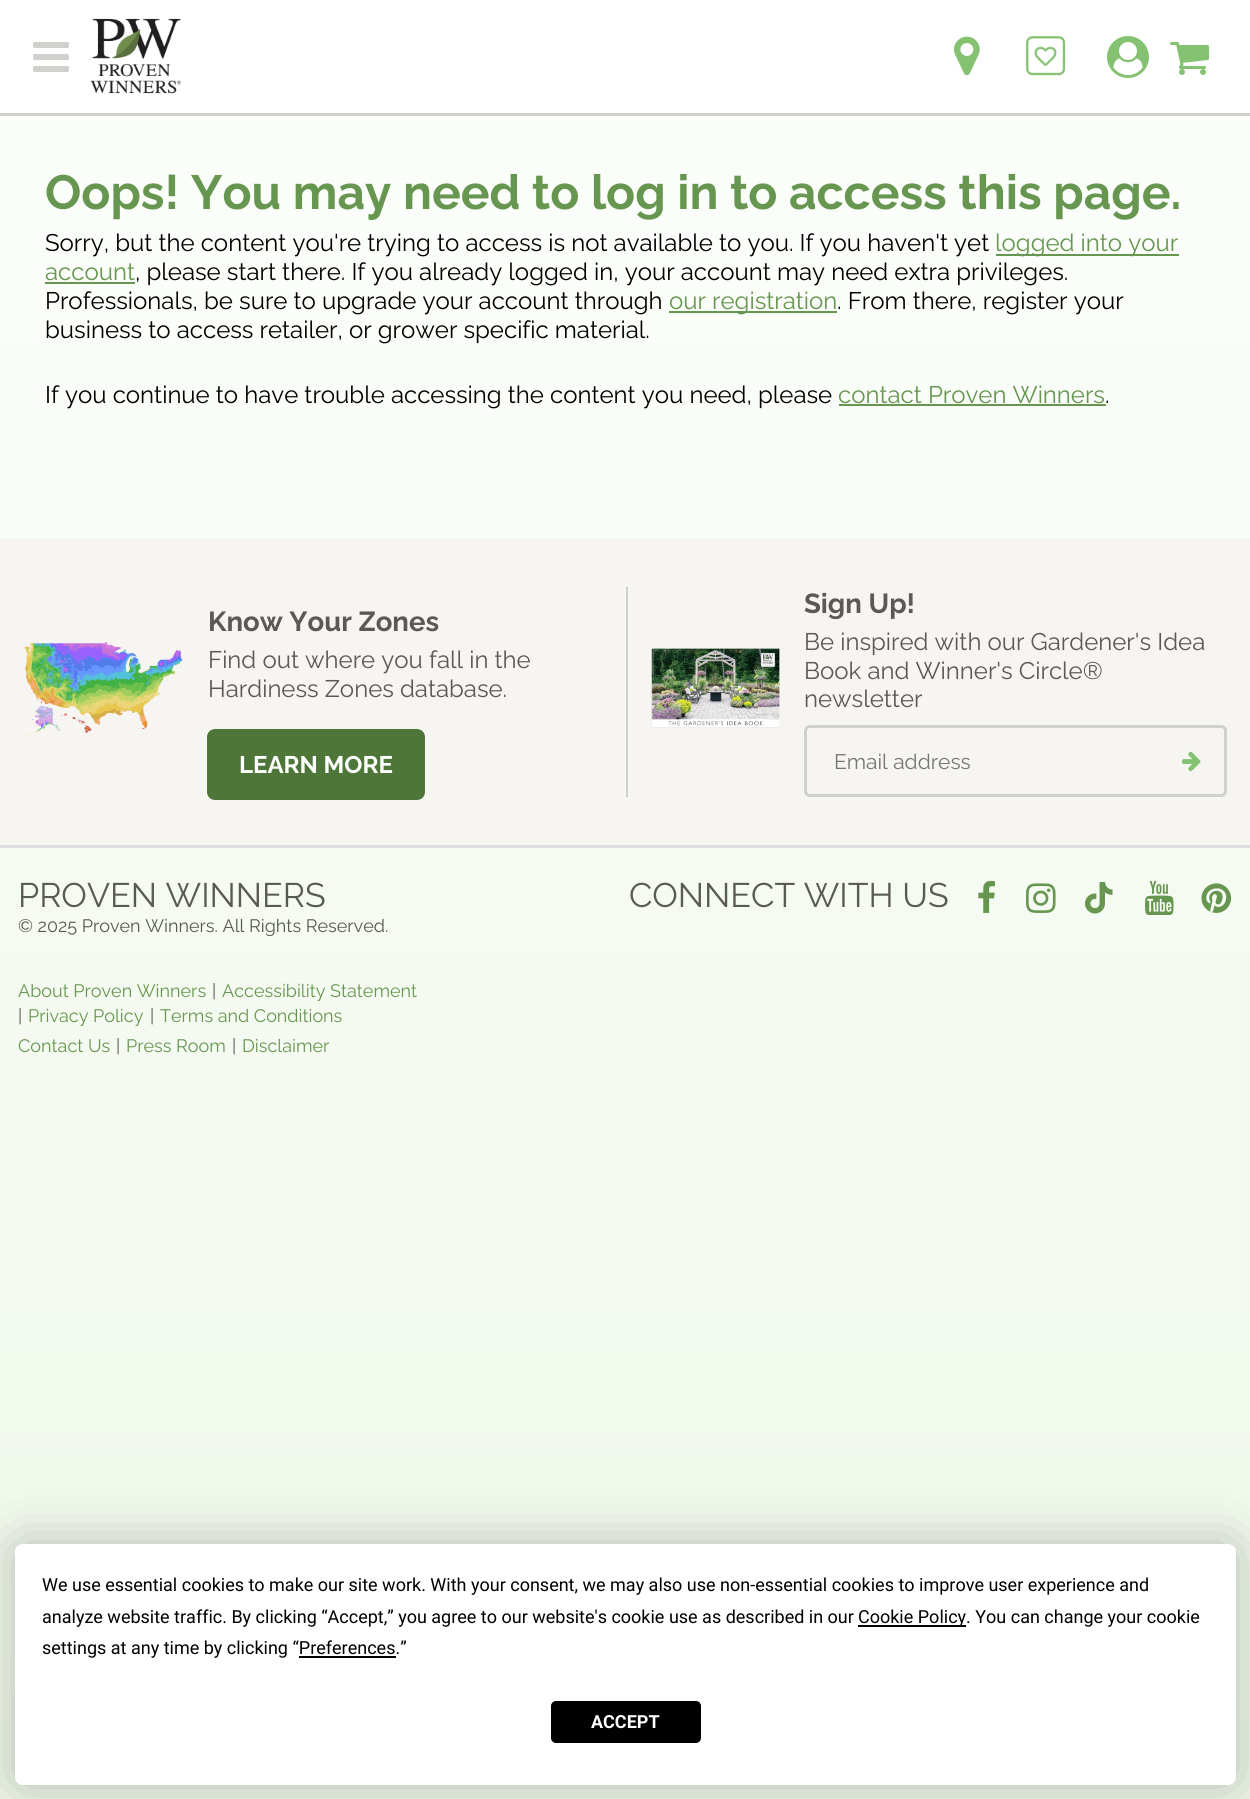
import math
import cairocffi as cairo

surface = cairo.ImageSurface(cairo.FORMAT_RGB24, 1250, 1799)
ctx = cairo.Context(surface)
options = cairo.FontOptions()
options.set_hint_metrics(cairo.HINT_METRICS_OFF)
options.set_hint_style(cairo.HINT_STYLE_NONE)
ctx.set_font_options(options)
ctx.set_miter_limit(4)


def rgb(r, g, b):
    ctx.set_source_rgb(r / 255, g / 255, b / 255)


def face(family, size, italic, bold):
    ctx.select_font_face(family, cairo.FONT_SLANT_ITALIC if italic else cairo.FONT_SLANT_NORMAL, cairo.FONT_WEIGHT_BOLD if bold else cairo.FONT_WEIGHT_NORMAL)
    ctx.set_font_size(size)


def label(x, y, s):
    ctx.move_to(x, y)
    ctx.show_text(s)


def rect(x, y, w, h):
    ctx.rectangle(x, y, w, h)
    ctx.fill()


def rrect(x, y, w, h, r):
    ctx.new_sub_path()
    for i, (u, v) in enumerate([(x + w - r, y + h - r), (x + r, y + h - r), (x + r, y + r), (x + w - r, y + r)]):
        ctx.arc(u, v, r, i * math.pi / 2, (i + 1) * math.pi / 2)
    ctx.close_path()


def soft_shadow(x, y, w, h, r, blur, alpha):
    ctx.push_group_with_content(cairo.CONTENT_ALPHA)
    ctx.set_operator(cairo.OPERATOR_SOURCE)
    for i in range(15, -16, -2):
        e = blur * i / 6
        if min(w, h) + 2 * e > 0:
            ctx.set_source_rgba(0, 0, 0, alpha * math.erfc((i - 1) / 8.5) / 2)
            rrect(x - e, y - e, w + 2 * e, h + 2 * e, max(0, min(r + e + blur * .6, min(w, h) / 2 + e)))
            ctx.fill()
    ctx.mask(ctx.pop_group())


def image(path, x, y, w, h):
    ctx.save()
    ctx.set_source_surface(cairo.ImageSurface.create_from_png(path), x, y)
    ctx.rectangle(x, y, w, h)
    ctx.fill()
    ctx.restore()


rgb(255, 255, 255)
ctx.paint()
gradient = cairo.LinearGradient(625, 0, 626, 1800)
gradient.add_color_stop_rgba(0, 1, 1, 1, 1)
gradient.add_color_stop_rgba(0, 0.988, 0.996, 0.984, 1)
gradient.add_color_stop_rgba(1, 0.937, 0.969, 0.914, 1)
ctx.set_source(gradient)
rect(0, 116, 1250, 1683)
rgb(208, 208, 205)
rect(0, 113, 1250, 3)
image('image0.png', 33, 42, 36, 30)
image('image1.png', 90, 18, 91, 76)
image('image2.png', 954, 36, 26, 40)
image('image3.png', 1026, 36, 40, 40)
image('image4.png', 1107, 36, 42, 42)
image('image5.png', 1170, 42, 39, 33)
face('Raleway', 48, 0, 1)
rgb(103, 150, 80)
label(45, 209, 'Oops! You may need to log in to access this page.')
face('Raleway', 24, 0, 0)
rgb(0, 0, 0)
label(45, 251, 'Sorry, but the content you\'re trying to access is not available to you. If you haven\'t yet')
rgb(103, 150, 80)
rect(996, 254, 183, 2)
label(995, 251, 'logged into your')
label(45, 280, 'account')
rect(45, 282, 90, 2)
rgb(0, 0, 0)
label(135, 280, ', please start there. If you already logged in, your account may need extra privileges.')
label(45, 309, 'Professionals, be sure to upgrade your account through')
rgb(103, 150, 80)
rect(669, 311, 168, 2)
label(669, 309, 'our registration')
rgb(0, 0, 0)
label(837, 309, '. From there, register your')
label(45, 338, 'business to access retailer, or grower specific material.')
label(45, 403, 'If you continue to have trouble accessing the content you need, please')
rgb(103, 150, 80)
label(838, 403, 'contact Proven Winners')
rect(839, 404, 267, 2)
rgb(0, 0, 0)
label(1105, 403, '.')
rgb(247, 245, 242)
rect(0, 539, 1250, 306)
image('image6.png', 24, 642, 159, 93)
face('Raleway', 27.5, 0, 1)
rgb(90, 89, 83)
label(208, 631, 'Know Your Zones')
face('Raleway', 24, 0, 0)
label(208, 668, 'Find out where you fall in the')
label(208, 697, 'Hardiness Zones database.')
rgb(78, 118, 57)
rrect(208, 730, 216, 69, 7)
ctx.fill_preserve()
ctx.stroke()
face('Raleway', 24, 0, 1)
rgb(255, 255, 255)
label(239, 773, 'LEARN MORE')
rgb(208, 208, 205)
rect(626, 587, 2, 210)
image('image7.png', 651, 648, 129, 80)
face('Raleway', 27.5, 0, 1)
rgb(90, 89, 83)
label(804, 613, 'Sign Up!')
face('Raleway', 24, 0, 0)
label(804, 650, 'Be inspired with our Gardener\'s Idea')
label(804, 679, 'Book and Winner\'s Circle®')
label(804, 707, 'newsletter')
rrect(805.5, 726.5, 420, 69, 4.5)
rgb(208, 208, 205)
ctx.set_line_width(3)
ctx.stroke()
face('Raleway', 21, 0, 0)
rgb(117, 117, 117)
label(834, 769, 'Email address')
image('image8.png', 1182, 751, 19, 21)
rgb(221, 221, 221)
rect(0, 845, 1250, 3)
face('Raleway', 34, 0, 0)
rgb(90, 89, 83)
label(18, 907, 'PROVEN WINNERS')
face('Raleway', 18, 0, 0)
label(18, 932, '© 2025 Proven Winners. All Rights Reserved.')
rgb(103, 150, 80)
label(18, 997, 'About Proven Winners')
rgb(90, 89, 83)
label(212, 997, '|')
rgb(103, 150, 80)
label(222, 997, 'Accessibility Statement')
rgb(90, 89, 83)
label(18, 1022, '|')
rgb(103, 150, 80)
label(28, 1022, 'Privacy Policy')
rgb(90, 89, 83)
label(150, 1022, '|')
rgb(103, 150, 80)
label(160, 1022, 'Terms and Conditions')
label(18, 1052, 'Contact Us')
rgb(90, 89, 83)
label(116, 1052, '|')
rgb(103, 150, 80)
label(126, 1052, 'Press Room')
rgb(90, 89, 83)
label(232, 1052, '|')
rgb(103, 150, 80)
label(242, 1052, 'Disclaimer')
face('Raleway', 34, 0, 0)
rgb(90, 89, 83)
label(629, 907, 'CONNECT WITH US')
image('image9.png', 978, 880, 17, 33)
image('image10.png', 1026, 883, 30, 30)
image('image11.png', 1085, 882, 28, 32)
image('image12.png', 1145, 880, 29, 35)
image('image13.png', 1201, 883, 31, 30)
rgb(0, 0, 0)
soft_shadow(15, 1544, 1221, 241, 8, 26, 0.25)
rgb(255, 255, 255)
rrect(15, 1544, 1221, 241, 8)
ctx.fill()
face('Roboto', 18, 0, 0)
rgb(0, 0, 0)
label(42, 1591, 'We use essential cookies to make our site work. With your consent, we may also use non-essential cookies to improve user experience and')
label(42, 1623, 'analyze website traffic. By clicking “Accept,” you agree to our website\'s cookie use as described in our')
rect(858, 1625, 108, 2)
label(858, 1623, 'Cookie Policy. You can change your cookie')
label(42, 1654, 'settings at any time by clicking “Preferences.”')
rect(299, 1656, 97, 2)
rrect(552, 1702, 148, 40, 4)
ctx.fill_preserve()
ctx.set_line_width(2)
ctx.stroke()
face('Roboto', 18, 0, 1)
rgb(255, 255, 255)
label(591, 1728, 'ACCEPT')
surface.write_to_png('render.png')
